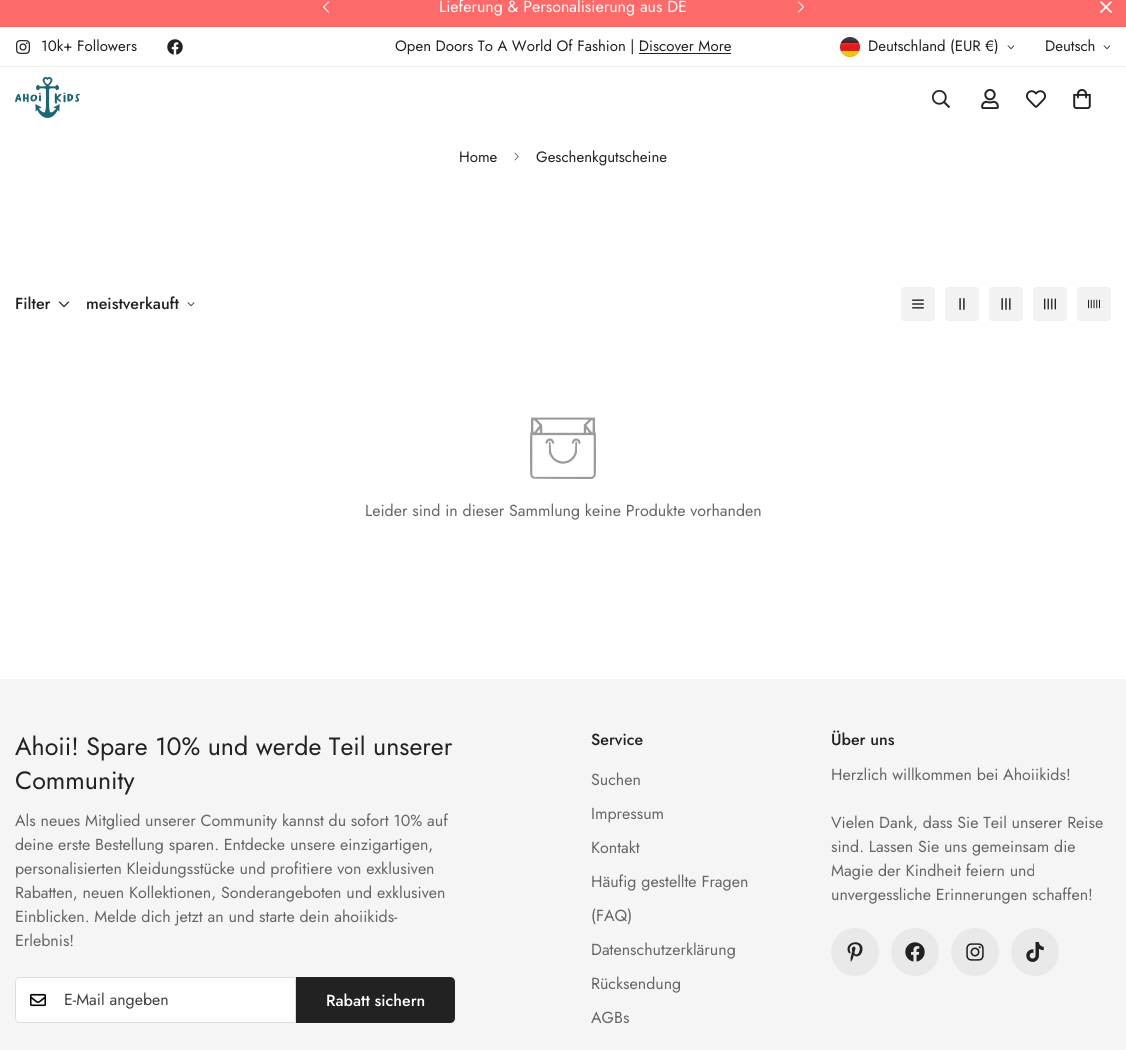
import math
import cairocffi as cairo

surface = cairo.ImageSurface(cairo.FORMAT_RGB24, 1126, 1050)
ctx = cairo.Context(surface)
options = cairo.FontOptions()
options.set_hint_metrics(cairo.HINT_METRICS_OFF)
options.set_hint_style(cairo.HINT_STYLE_NONE)
ctx.set_font_options(options)
ctx.set_miter_limit(4)


def rgb(r, g, b):
    ctx.set_source_rgb(r / 255, g / 255, b / 255)


def face(family, size, italic, bold):
    ctx.select_font_face(family, cairo.FONT_SLANT_ITALIC if italic else cairo.FONT_SLANT_NORMAL, cairo.FONT_WEIGHT_BOLD if bold else cairo.FONT_WEIGHT_NORMAL)
    ctx.set_font_size(size)


def label(x, y, s):
    ctx.move_to(x, y)
    ctx.show_text(s)


def rect(x, y, w, h):
    ctx.rectangle(x, y, w, h)
    ctx.fill()


def rrect(x, y, w, h, r):
    ctx.new_sub_path()
    for i, (u, v) in enumerate([(x + w - r, y + h - r), (x + r, y + h - r), (x + r, y + r), (x + w - r, y + r)]):
        ctx.arc(u, v, r, i * math.pi / 2, (i + 1) * math.pi / 2)
    ctx.close_path()


def image(path, x, y, w, h):
    ctx.save()
    ctx.set_source_surface(cairo.ImageSurface.create_from_png(path), x, y)
    ctx.rectangle(x, y, w, h)
    ctx.fill()
    ctx.restore()


rgb(255, 255, 255)
ctx.paint()
rgb(253, 106, 106)
rect(0, 0, 1126, 27)
face('Jost', 16, 0, 0)
rgb(255, 255, 255)
label(439, 12, 'Lieferung & Personalisierung aus DE')
ctx.new_path()
ctx.move_to(328.5, 12)
ctx.line_to(323.5, 7)
ctx.line_to(328.5, 2)
ctx.set_line_width(1)
ctx.set_line_cap(cairo.LINE_CAP_ROUND)
ctx.set_line_join(cairo.LINE_JOIN_ROUND)
ctx.stroke()
ctx.new_path()
ctx.move_to(798.5, 12)
ctx.line_to(803.5, 7)
ctx.line_to(798.5, 2)
ctx.stroke()
ctx.new_path()
ctx.move_to(1101, 12)
ctx.line_to(1111, 2)
ctx.move_to(1101, 2)
ctx.line_to(1111, 12)
ctx.set_line_width(1.7)
ctx.stroke()
rgb(238, 238, 238)
rect(0, 66, 1126, 1)
image('image0.png', 16, 40, 14, 14)
face('Jost', 15, 0, 0)
rgb(34, 34, 34)
label(41, 51, '10k+ Followers')
image('image1.png', 167, 39, 16, 16)
label(395, 51, 'Open Doors To A World Of Fashion | Discover More')
rect(639, 53, 92, 1)
image('image2.png', 840, 37, 20, 20)
label(868, 51, 'Deutschland (EUR €)')
image('image3.png', 1007, 45, 8, 5)
label(1045, 51, 'Deutsch')
image('image3.png', 1103, 45, 8, 5)
image('image4.png', 15, 77, 65, 41)
image('image5.png', 932, 90, 18, 18)
image('image6.png', 981, 89, 18, 20)
image('image7.png', 1026, 90, 20, 18)
image('image8.png', 1073, 89, 18, 20)
label(459, 162, 'Home')
image('image9.png', 514, 152, 5, 9)
label(536, 162, 'Geschenkgutscheine')
face('Jost Medium', 16, 0, 0)
label(15, 309, 'Filter')
image('image10.png', 58, 301, 12, 7)
label(86, 309, 'meistverkauft')
image('image3.png', 187, 302, 8, 5)
rgb(242, 242, 242)
rrect(901, 287, 34, 34, 3)
ctx.fill()
image('image11.png', 912, 299, 12, 10)
rrect(945, 287, 34, 34, 3)
ctx.fill()
image('image12.png', 959, 298, 6, 12)
rrect(989, 287, 34, 34, 3)
ctx.fill()
image('image13.png', 1001, 298, 10, 12)
rrect(1033, 287, 34, 34, 3)
ctx.fill()
image('image14.png', 1044, 298, 12, 12)
rrect(1077, 287, 34, 34, 3)
ctx.fill()
image('image15.png', 1088, 299, 12, 10)
image('image16.png', 530, 417, 66, 62)
face('Jost', 16, 0, 0)
rgb(102, 102, 102)
label(365, 516, 'Leider sind in dieser Sammlung keine Produkte vorhanden')
rgb(245, 245, 245)
rect(0, 679, 1126, 371)
face('Jost', 25, 0, 0)
rgb(34, 34, 34)
label(15, 755, 'Ahoii! Spare 10% und werde Teil unserer')
label(15, 789, 'Community')
face('Jost', 16, 0, 0)
rgb(102, 102, 102)
label(15, 826, 'Als neues Mitglied unserer Community kannst du sofort 10% auf')
label(15, 850, 'deine erste Bestellung sparen. Entdecke unsere einzigartigen,')
label(15, 874, 'personalisierten Kleidungsstücke und profitiere von exklusiven')
label(15, 898, 'Rabatten, neuen Kollektionen, Sonderangeboten und exklusiven')
label(15, 922, 'Einblicken. Melde dich jetzt an und starte dein ahoiikids-')
label(15, 946, 'Erlebnis!')
rgb(255, 255, 255)
rrect(15.5, 977.5, 439, 45, 4.5)
ctx.fill_preserve()
rgb(222, 222, 222)
ctx.set_line_width(1)
ctx.set_line_cap(cairo.LINE_CAP_BUTT)
ctx.set_line_join(cairo.LINE_JOIN_MITER)
ctx.stroke()
image('image17.png', 30, 993, 16, 14)
rgb(64, 64, 64)
label(64, 1005, 'E-Mail angeben')
rgb(34, 34, 34)
ctx.new_path()
ctx.move_to(296, 977)
ctx.line_to(450, 977)
ctx.curve_to(453, 977, 455, 979, 455, 982)
ctx.line_to(455, 1018)
ctx.curve_to(455, 1021, 453, 1023, 450, 1023)
ctx.line_to(296, 1023)
ctx.close_path()
ctx.fill()
rgb(222, 222, 222)
rect(295, 977, 1, 46)
face('Jost Medium', 16, 0, 0)
rgb(255, 255, 255)
label(326, 1006, 'Rabatt sichern')
rgb(34, 34, 34)
label(591, 745, 'Service')
face('Jost', 16, 0, 0)
rgb(102, 102, 102)
label(591, 785, 'Suchen')
label(591, 819, 'Impressum')
label(591, 853, 'Kontakt')
label(591, 887, 'Häufig gestellte Fragen')
label(591, 921, '(FAQ)')
label(591, 955, 'Datenschutzerklärung')
label(591, 989, 'Rücksendung')
label(591, 1023, 'AGBs')
face('Jost Medium', 16, 0, 0)
rgb(34, 34, 34)
label(831, 745, 'Über uns')
face('Jost', 16, 0, 0)
rgb(102, 102, 102)
label(831, 780, 'Herzlich willkommen bei Ahoiikids!')
label(831, 828, 'Vielen Dank, dass Sie Teil unserer Reise')
label(831, 852, 'sind. Lassen Sie uns gemeinsam die')
label(831, 876, 'Magie der Kindheit feiern und')
label(831, 900, 'unvergessliche Erinnerungen schaffen!')
rgb(233, 233, 233)
ctx.new_path()
ctx.arc(855, 952, 24, 0, 2 * math.pi)
ctx.fill()
image('image18.png', 847, 942, 16, 20)
ctx.arc(915, 952, 24, 0, 2 * math.pi)
ctx.fill()
image('image19.png', 905, 942, 20, 20)
ctx.arc(975, 952, 24, 0, 2 * math.pi)
ctx.fill()
image('image20.png', 966, 943, 18, 18)
ctx.arc(1035, 952, 24, 0, 2 * math.pi)
ctx.fill()
image('image21.png', 1026, 942, 18, 20)
surface.write_to_png('render.png')
